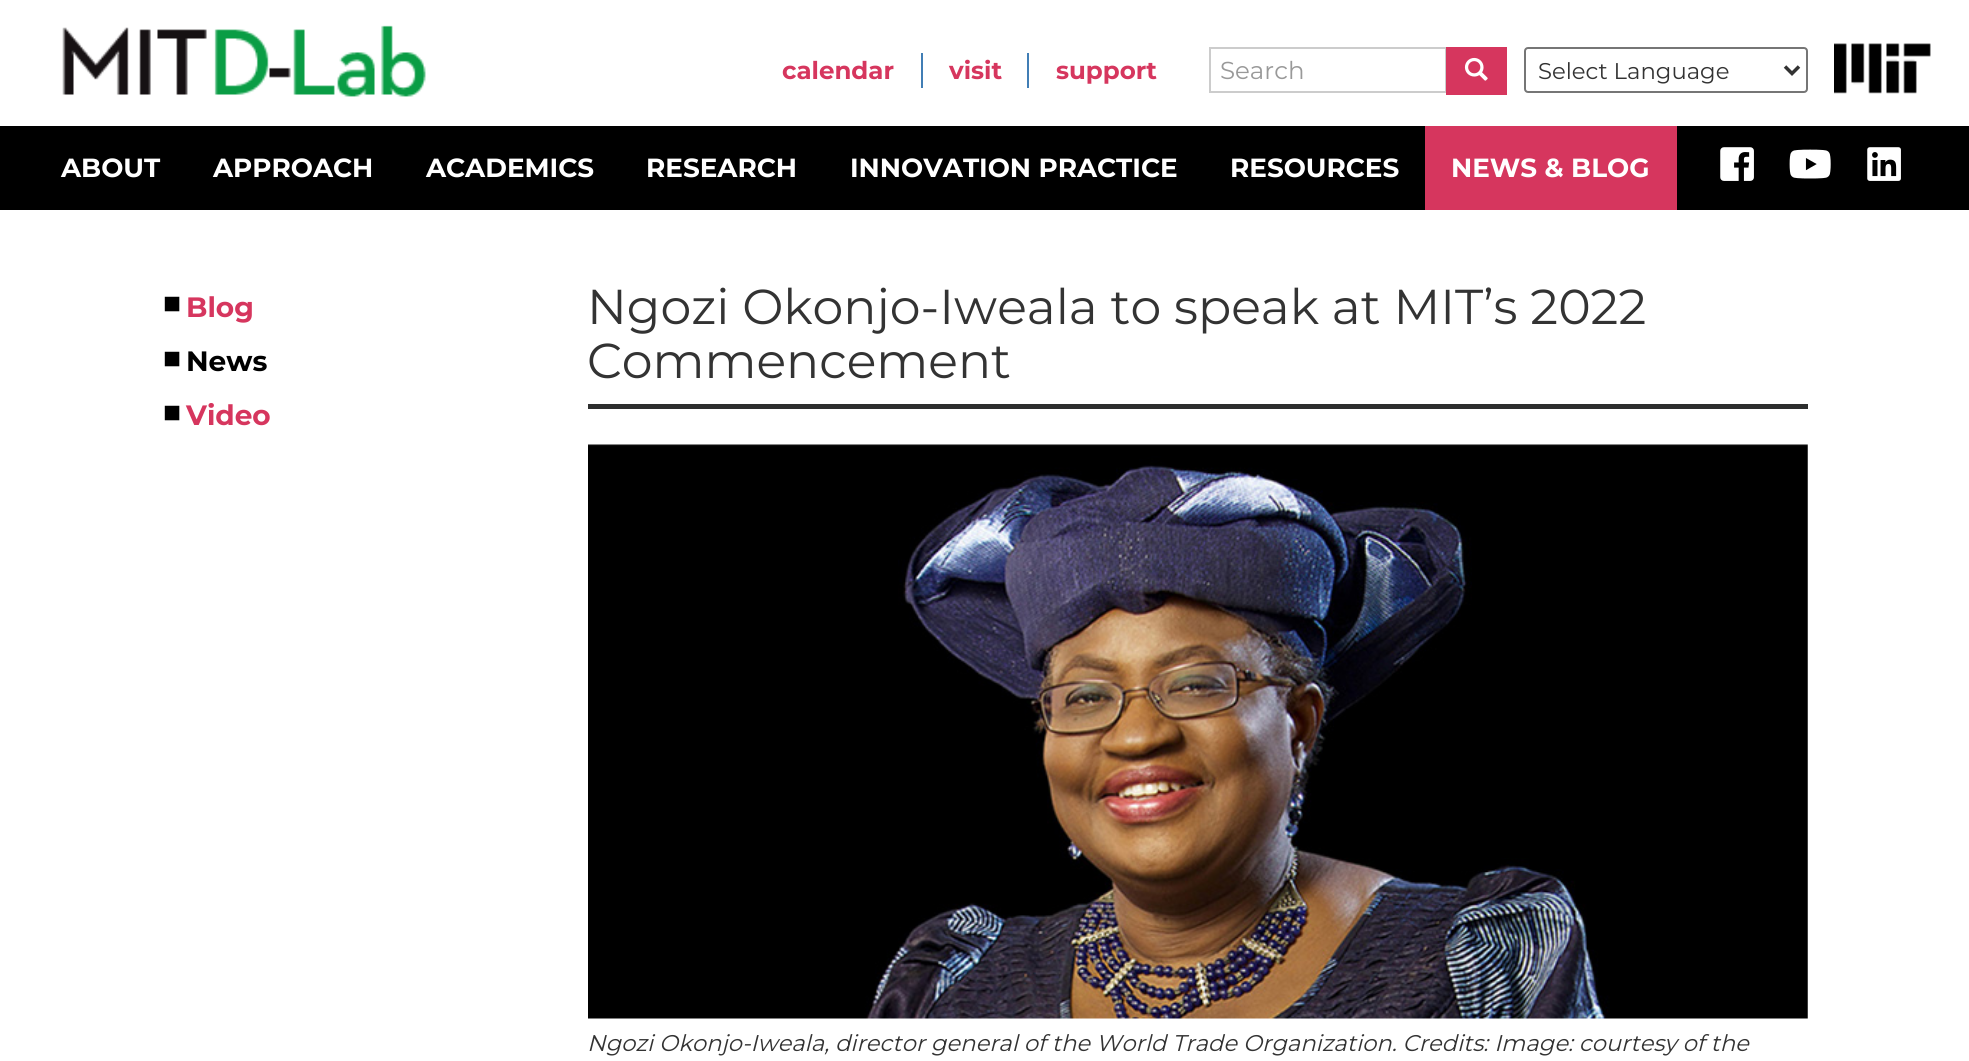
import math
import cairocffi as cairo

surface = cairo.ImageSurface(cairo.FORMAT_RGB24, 1969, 1061)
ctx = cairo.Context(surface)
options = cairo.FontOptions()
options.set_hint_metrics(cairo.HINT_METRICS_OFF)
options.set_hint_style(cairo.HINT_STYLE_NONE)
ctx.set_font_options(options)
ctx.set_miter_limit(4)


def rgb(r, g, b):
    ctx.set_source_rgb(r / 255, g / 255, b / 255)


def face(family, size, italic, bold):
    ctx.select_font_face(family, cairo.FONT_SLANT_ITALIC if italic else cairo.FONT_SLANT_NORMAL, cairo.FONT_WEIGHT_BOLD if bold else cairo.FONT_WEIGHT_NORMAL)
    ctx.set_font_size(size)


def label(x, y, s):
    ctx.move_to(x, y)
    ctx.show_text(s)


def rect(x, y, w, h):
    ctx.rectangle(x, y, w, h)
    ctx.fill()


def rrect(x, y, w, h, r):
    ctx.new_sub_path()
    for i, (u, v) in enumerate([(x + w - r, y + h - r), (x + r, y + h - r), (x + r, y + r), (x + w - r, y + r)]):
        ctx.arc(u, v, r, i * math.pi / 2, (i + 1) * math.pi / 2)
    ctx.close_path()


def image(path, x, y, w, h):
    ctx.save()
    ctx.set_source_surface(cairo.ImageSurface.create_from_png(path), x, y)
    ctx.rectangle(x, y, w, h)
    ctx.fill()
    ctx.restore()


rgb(255, 255, 255)
ctx.paint()
image('image0.png', 62, 25, 364, 72)
rgb(65, 126, 181)
rect(921, 53, 2, 35)
face('Montserrat', 24.5, 0, 1)
rgb(214, 54, 94)
label(782, 79, 'calendar')
rgb(65, 126, 181)
rect(1027, 53, 2, 35)
rgb(214, 54, 94)
label(949, 79, 'visit')
label(1056, 79, 'support')
ctx.rectangle(1210, 48, 236, 44)
rgb(204, 204, 204)
ctx.stroke()
face('Montserrat', 24.5, 0, 0)
rgb(153, 153, 153)
label(1220, 79, 'Search')
rgb(214, 54, 94)
rect(1446, 47, 61, 48)
image('image1.png', 1464, 57, 24, 24)
rrect(1525, 48, 282, 44, 3)
rgb(118, 118, 118)
ctx.stroke()
ctx.new_path()
ctx.move_to(1785, 66.5)
ctx.line_to(1792, 73.5)
ctx.line_to(1799, 66.5)
rgb(51, 51, 51)
ctx.set_line_width(3.5)
ctx.stroke()
face('Montserrat', 22.75, 0, 0)
label(1538, 79, 'Select Language')
image('image2.png', 1834, 43, 97, 51)
rgb(0, 0, 0)
rect(0, 126, 1969, 84)
face('Montserrat', 26.25, 0, 1)
rgb(255, 255, 255)
label(61, 177, 'ABOUT')
label(213, 177, 'APPROACH')
label(426, 177, 'ACADEMICS')
label(646, 177, 'RESEARCH')
label(850, 177, 'INNOVATION PRACTICE')
label(1230, 177, 'RESOURCES')
rgb(214, 54, 94)
rect(1425, 126, 252, 84)
rgb(255, 255, 255)
label(1451, 177, 'NEWS & BLOG')
image('image3.png', 1720, 147, 34, 34)
image('image4.png', 1789, 149, 42, 30)
image('image5.png', 1867, 147, 34, 34)
face('Liberation Serif', 30, 0, 1)
rgb(0, 0, 0)
label(163, 313, '■')
face('Montserrat', 28, 0, 1)
rgb(214, 54, 94)
label(186, 317, 'Blog')
face('Liberation Serif', 30, 0, 1)
rgb(0, 0, 0)
label(163, 368, '■')
face('Montserrat', 28, 0, 1)
label(186, 371, 'News')
face('Liberation Serif', 30, 0, 1)
label(163, 422, '■')
face('Montserrat', 28, 0, 1)
rgb(214, 54, 94)
label(186, 425, 'Video')
rgb(45, 46, 46)
rect(588, 404, 1220, 5)
face('Montserrat', 49, 0, 0)
rgb(51, 51, 51)
label(587, 324, 'Ngozi Okonjo-Iweala to speak at MIT’s 2022')
label(587, 378, 'Commencement')
image('image6.png', 588, 444, 1220, 575)
face('Montserrat', 22.75, 1, 0)
label(587, 1051, 'Ngozi Okonjo-Iweala, director general of the World Trade Organization. Credits: Image: courtesy of the')
surface.write_to_png('render.png')
